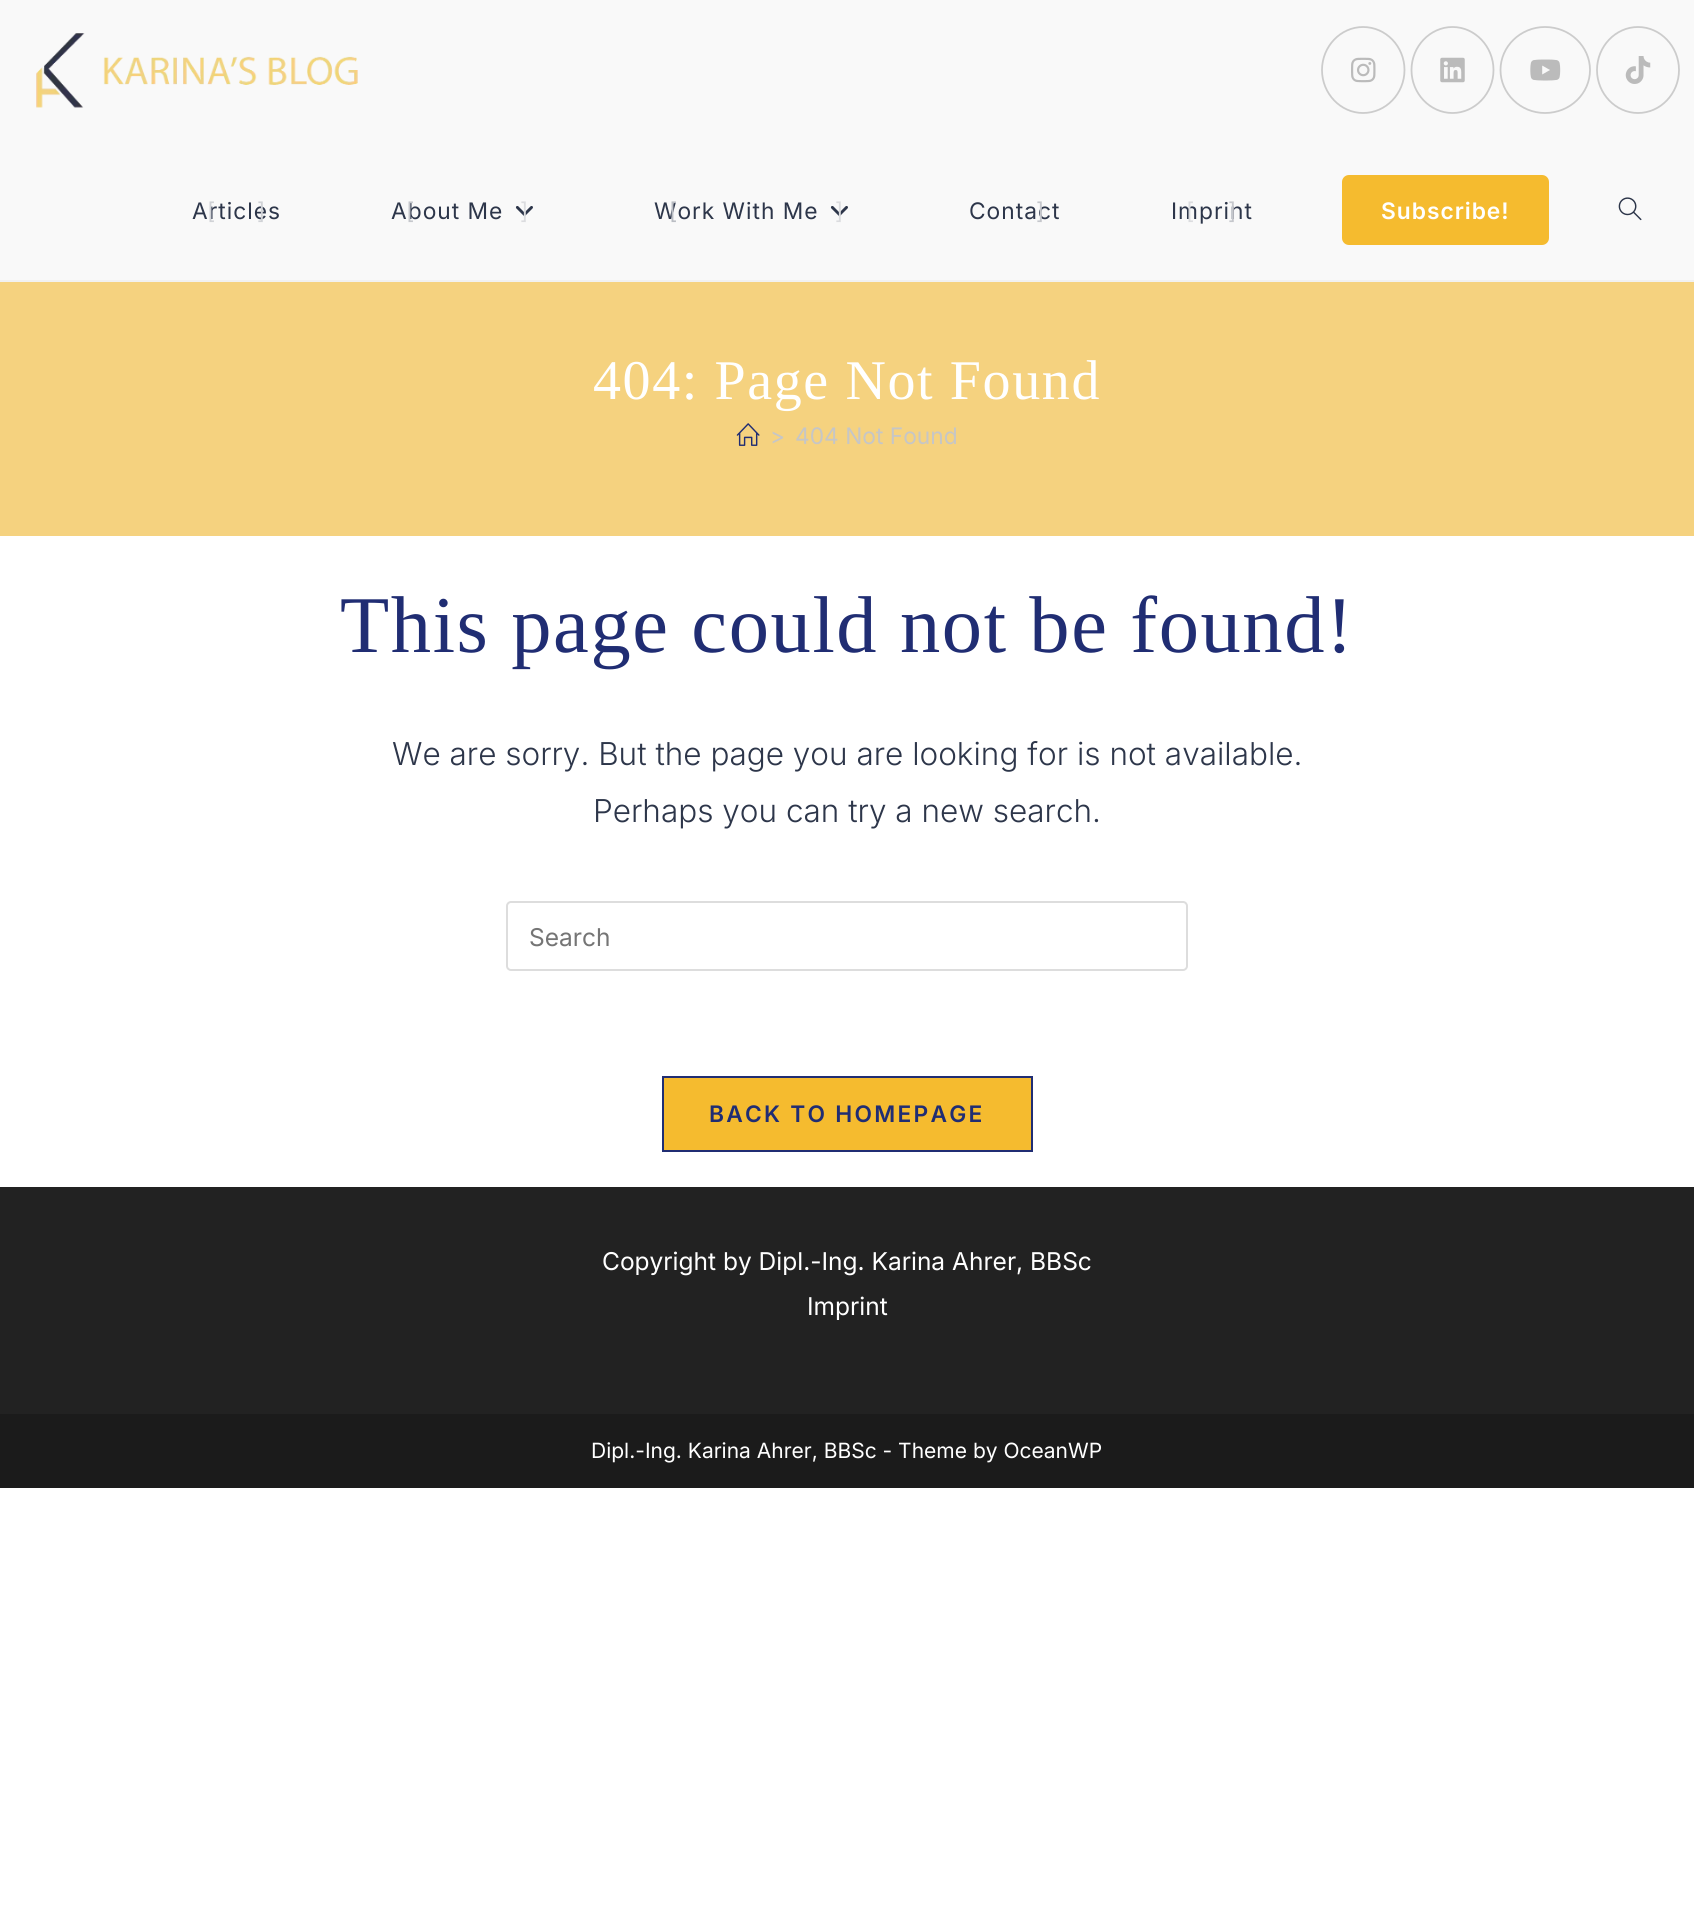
import math
import cairocffi as cairo

surface = cairo.ImageSurface(cairo.FORMAT_RGB24, 1694, 1932)
ctx = cairo.Context(surface)
options = cairo.FontOptions()
options.set_hint_metrics(cairo.HINT_METRICS_OFF)
options.set_hint_style(cairo.HINT_STYLE_NONE)
ctx.set_font_options(options)
ctx.set_miter_limit(4)


def rgb(r, g, b):
    ctx.set_source_rgb(r / 255, g / 255, b / 255)


def face(family, size, italic, bold):
    ctx.select_font_face(family, cairo.FONT_SLANT_ITALIC if italic else cairo.FONT_SLANT_NORMAL, cairo.FONT_WEIGHT_BOLD if bold else cairo.FONT_WEIGHT_NORMAL)
    ctx.set_font_size(size)


def label(x, y, s):
    ctx.move_to(x, y)
    ctx.show_text(s)


def tracked(x, y, s, letter, word):
    ctx.move_to(x, y)
    for ch in s:
        ctx.show_text(ch)
        ctx.rel_move_to(letter + word * (ch == ' '), 0)


def rect(x, y, w, h):
    ctx.rectangle(x, y, w, h)
    ctx.fill()


def rrect(x, y, w, h, r):
    ctx.new_sub_path()
    for i, (u, v) in enumerate([(x + w - r, y + h - r), (x + r, y + h - r), (x + r, y + r), (x + w - r, y + r)]):
        ctx.arc(u, v, r, i * math.pi / 2, (i + 1) * math.pi / 2)
    ctx.close_path()


def image(path, x, y, w, h):
    ctx.save()
    ctx.set_source_surface(cairo.ImageSurface.create_from_png(path), x, y)
    ctx.rectangle(x, y, w, h)
    ctx.fill()
    ctx.restore()


rgb(255, 255, 255)
ctx.paint()
rgb(249, 249, 249)
rect(0, 0, 1694, 280)
rgb(241, 241, 241)
rect(0, 280, 1694, 2)
image('image0.png', 36, 33, 322, 75)
ctx.new_path()
ctx.move_to(1363, 27)
ctx.curve_to(1386, 27, 1404.5, 46.5, 1404.5, 70)
ctx.curve_to(1404.5, 93.5, 1386, 113, 1363, 113)
ctx.curve_to(1340.5, 113, 1322, 93.5, 1322, 70)
ctx.curve_to(1322, 46.5, 1340.5, 27, 1363, 27)
ctx.close_path()
rgb(204, 204, 204)
ctx.set_line_width(1.8)
ctx.stroke()
image('image1.png', 1351, 57, 25, 26)
ctx.new_path()
ctx.move_to(1452.5, 27)
ctx.curve_to(1475, 27, 1493.5, 46.5, 1493.5, 70)
ctx.curve_to(1493.5, 93.5, 1475, 113, 1452.5, 113)
ctx.curve_to(1430, 113, 1411.5, 93.5, 1411.5, 70)
ctx.curve_to(1411.5, 46.5, 1430, 27, 1452.5, 27)
ctx.close_path()
ctx.stroke()
image('image2.png', 1440, 57, 25, 26)
ctx.new_path()
ctx.move_to(1545, 27)
ctx.curve_to(1570, 27, 1590, 46.5, 1590, 70)
ctx.curve_to(1590, 93.5, 1570, 113, 1545, 113)
ctx.curve_to(1520.5, 113, 1500.5, 93.5, 1500.5, 70)
ctx.curve_to(1500.5, 46.5, 1520.5, 27, 1545, 27)
ctx.close_path()
ctx.stroke()
image('image3.png', 1530, 59, 31, 22)
ctx.new_path()
ctx.move_to(1638, 27)
ctx.curve_to(1660.5, 27, 1679, 46.5, 1679, 70)
ctx.curve_to(1679, 93.5, 1660.5, 113, 1638, 113)
ctx.curve_to(1615.5, 113, 1597, 93.5, 1597, 70)
ctx.curve_to(1597, 46.5, 1615.5, 27, 1638, 27)
ctx.close_path()
ctx.stroke()
image('image4.png', 1625, 56, 26, 28)
face('Inter', 22.75, 0, 0)
rgb(45, 54, 74)
tracked(192, 219, 'Articles', 1, 0)
rgb(208, 210, 214)
tracked(207, 219, '[', 1, 0)
tracked(257, 219, ']', 1, 0)
rgb(45, 54, 74)
tracked(391, 219, 'About Me', 1, 0)
rgb(197, 199, 204)
tracked(406, 219, '[', 1, 0)
image('image5.png', 515, 206, 18, 10)
rgb(219, 220, 223)
tracked(520, 219, ']', 1, 0)
rgb(45, 54, 74)
tracked(654, 219, 'Work With Me', 1, 0)
rgb(186, 189, 195)
tracked(669, 219, '[', 1, 0)
image('image5.png', 830, 206, 18, 10)
rgb(219, 220, 223)
tracked(835, 219, ']', 1, 0)
rgb(45, 54, 74)
tracked(969, 219, 'Contact', 1, 0)
rgb(197, 199, 204)
tracked(1036, 219, ']', 1, 0)
rgb(45, 54, 74)
tracked(1171, 219, 'Imprint', 1, 0)
rgb(219, 220, 223)
tracked(1186, 219, '[', 1, 0)
rgb(197, 199, 204)
tracked(1228, 219, ']', 1, 0)
rgb(245, 187, 47)
rrect(1342, 175, 207, 70, 7)
ctx.fill()
face('Inter SemiBold', 22.75, 0, 0)
rgb(255, 255, 255)
tracked(1381, 219, 'Subscribe!', 1, 0)
image('image6.png', 1618, 197, 24, 24)
rgb(245, 210, 127)
rect(0, 282, 1694, 254)
face('Liberation Serif', 56, 0, 0)
rgb(255, 255, 255)
tracked(593, 399, '404: Page Not Found', 1.6, 0)
image('image7.png', 736, 423, 24, 23)
face('Inter', 22.75, 0, 0)
rgb(198, 198, 198)
label(770, 444, '>')
label(795, 444, '404 Not Found')
face('Liberation Serif', 80.5, 0, 0)
rgb(32, 45, 115)
tracked(340, 652, 'This page could not be found!', 1.6, 0)
face('Inter Light', 31.5, 0, 0)
rgb(45, 54, 74)
label(392, 765, 'We are sorry. But the page you are looking for is not available.')
label(593, 822, 'Perhaps you can try a new search.')
rrect(507, 902, 680, 68, 4)
rgb(221, 221, 221)
ctx.set_line_width(2)
ctx.stroke()
face('Inter', 24.5, 0, 0)
rgb(117, 117, 117)
label(529, 946, 'Search')
rgb(245, 187, 47)
ctx.rectangle(663, 1077, 369, 74)
ctx.fill_preserve()
rgb(32, 45, 115)
ctx.stroke()
face('Inter SemiBold', 22.75, 0, 0)
tracked(709, 1122, 'BACK TO HOMEPAGE', 2.25, 0)
rgb(34, 34, 34)
rect(0, 1187, 1694, 227)
face('Inter', 24.5, 0, 0)
rgb(255, 255, 255)
label(602, 1270, 'Copyright by Dipl.-Ing. Karina Ahrer, BBSc')
label(807, 1315, 'Imprint')
rgb(27, 27, 27)
rect(0, 1414, 1694, 74)
face('Inter', 21, 0, 0)
rgb(255, 255, 255)
label(591, 1458, 'Dipl.-Ing. Karina Ahrer, BBSc - Theme by OceanWP')
surface.write_to_png('render.png')
